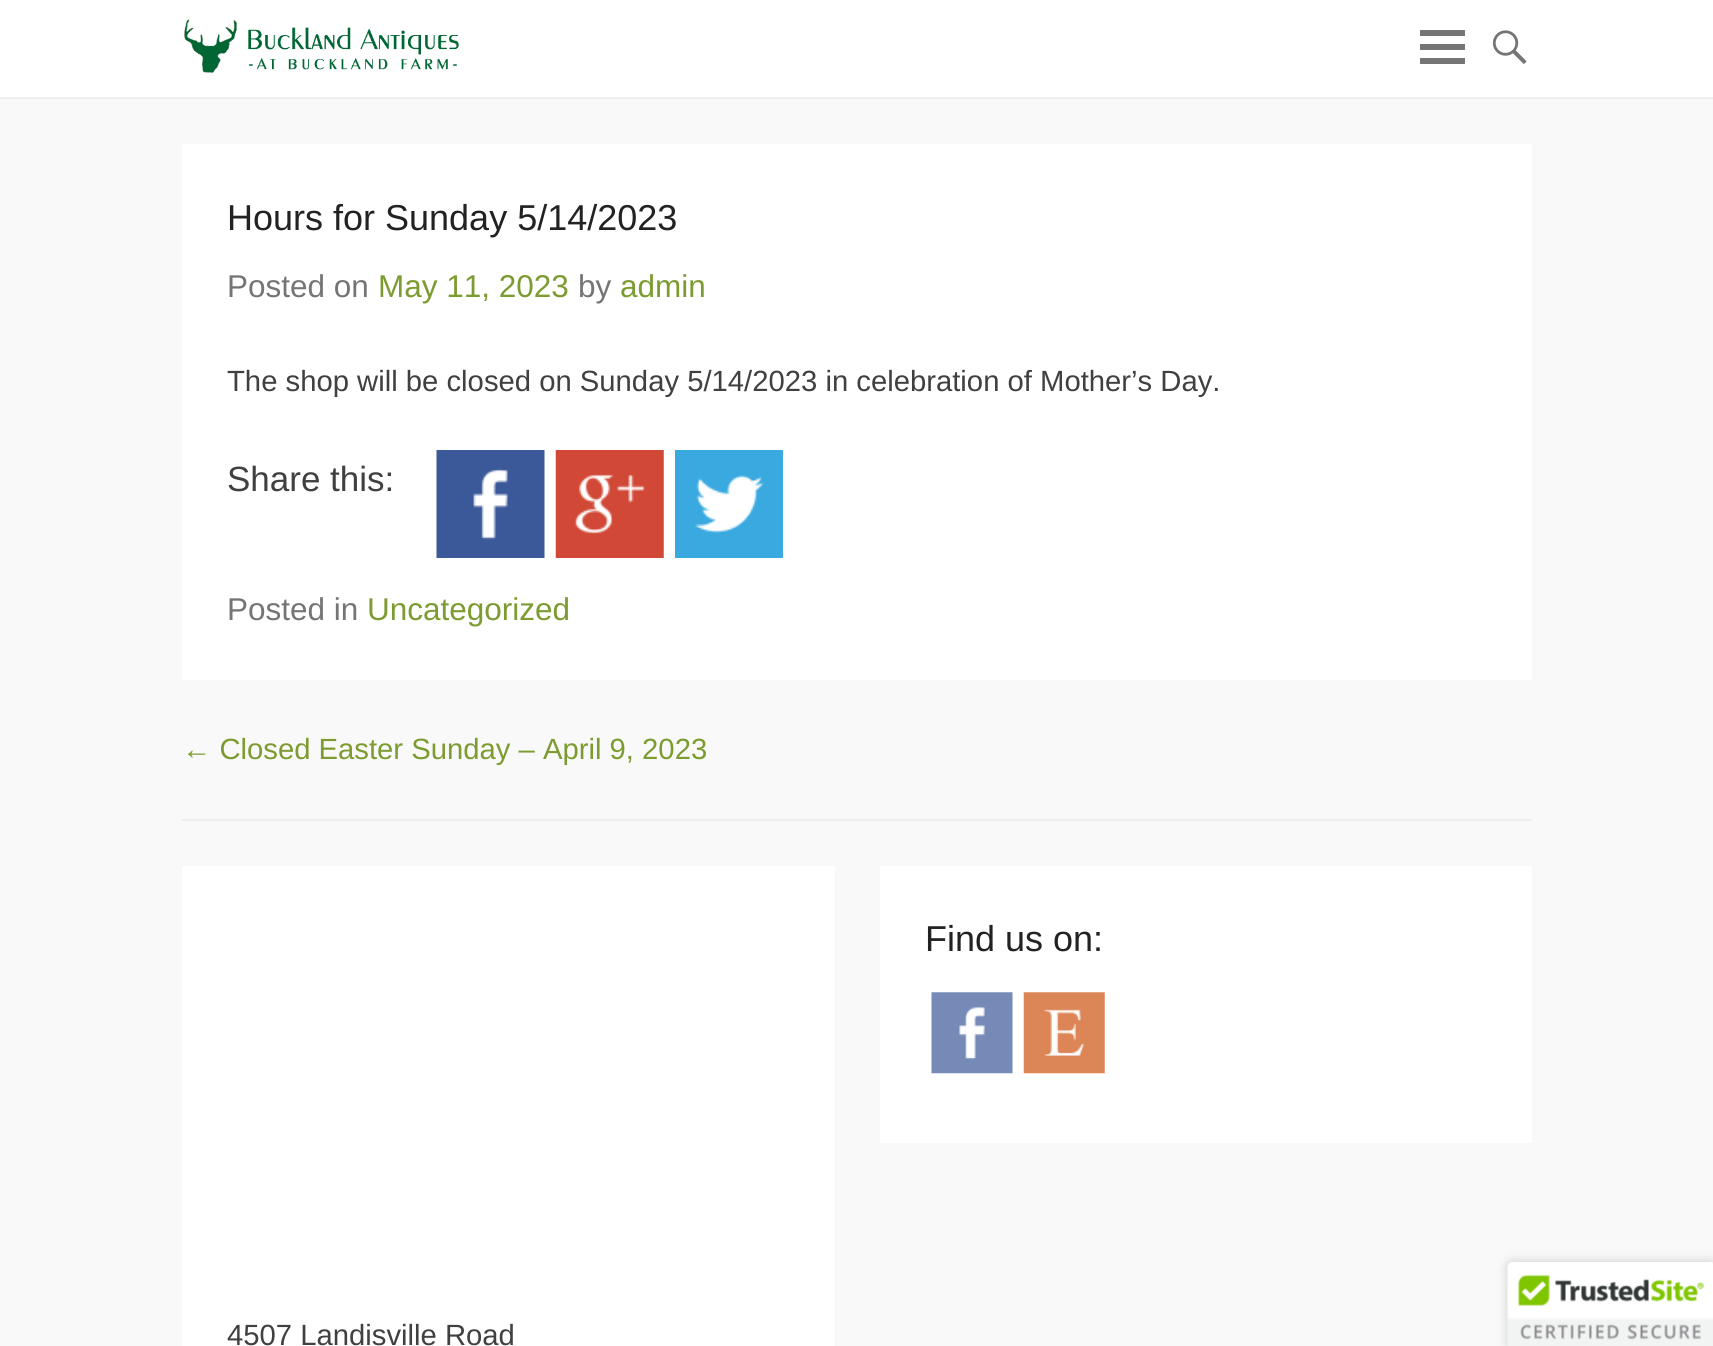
import math
import cairocffi as cairo

surface = cairo.ImageSurface(cairo.FORMAT_RGB24, 1713, 1346)
ctx = cairo.Context(surface)
options = cairo.FontOptions()
options.set_hint_metrics(cairo.HINT_METRICS_OFF)
options.set_hint_style(cairo.HINT_STYLE_NONE)
ctx.set_font_options(options)
ctx.set_miter_limit(4)


def rgb(r, g, b):
    ctx.set_source_rgb(r / 255, g / 255, b / 255)


def face(family, size, italic, bold):
    ctx.select_font_face(family, cairo.FONT_SLANT_ITALIC if italic else cairo.FONT_SLANT_NORMAL, cairo.FONT_WEIGHT_BOLD if bold else cairo.FONT_WEIGHT_NORMAL)
    ctx.set_font_size(size)


def label(x, y, s):
    ctx.move_to(x, y)
    ctx.show_text(s)


def rect(x, y, w, h):
    ctx.rectangle(x, y, w, h)
    ctx.fill()


def rrect(x, y, w, h, r):
    ctx.new_sub_path()
    for i, (u, v) in enumerate([(x + w - r, y + h - r), (x + r, y + h - r), (x + r, y + r), (x + w - r, y + r)]):
        ctx.arc(u, v, r, i * math.pi / 2, (i + 1) * math.pi / 2)
    ctx.close_path()


def soft_shadow(x, y, w, h, r, blur, alpha):
    ctx.push_group_with_content(cairo.CONTENT_ALPHA)
    ctx.set_operator(cairo.OPERATOR_SOURCE)
    for i in range(15, -16, -2):
        e = blur * i / 6
        if min(w, h) + 2 * e > 0:
            ctx.set_source_rgba(0, 0, 0, alpha * math.erfc((i - 1) / 8.5) / 2)
            rrect(x - e, y - e, w + 2 * e, h + 2 * e, max(0, min(r + e + blur * .6, min(w, h) / 2 + e)))
            ctx.fill()
    ctx.mask(ctx.pop_group())


def image(path, x, y, w, h):
    ctx.save()
    ctx.set_source_surface(cairo.ImageSurface.create_from_png(path), x, y)
    ctx.rectangle(x, y, w, h)
    ctx.fill()
    ctx.restore()


rgb(249, 249, 249)
ctx.paint()
rgb(255, 255, 255)
rect(0, 0, 1713, 97)
rgb(238, 238, 238)
rect(0, 97, 1713, 2)
image('image0.png', 184, 19, 275, 55)
rgb(117, 117, 117)
ctx.new_path()
ctx.move_to(1420, 64)
ctx.line_to(1420, 58)
ctx.line_to(1465, 58)
ctx.line_to(1465, 64)
ctx.close_path()
ctx.move_to(1420, 30)
ctx.line_to(1465, 30)
ctx.line_to(1465, 36)
ctx.line_to(1420, 36)
ctx.close_path()
ctx.move_to(1420, 50)
ctx.line_to(1420, 44)
ctx.line_to(1465, 44)
ctx.line_to(1465, 50)
ctx.close_path()
ctx.fill()
image('image1.png', 1492, 30, 35, 34)
rgb(238, 238, 238)
rect(182, 819, 1350, 2)
rgb(255, 255, 255)
rect(182, 144, 1350, 536)
face('Liberation Sans', 36, 0, 0)
rgb(34, 34, 34)
label(227, 230, 'Hours for Sunday 5/14/2023')
face('Liberation Sans', 31.5, 0, 0)
rgb(117, 117, 117)
label(227, 297, 'Posted on')
rgb(124, 155, 48)
label(378, 297, 'May 11, 2023')
rgb(117, 117, 117)
label(578, 297, 'by')
rgb(124, 155, 48)
label(620, 297, 'admin')
face('Liberation Sans', 29.25, 0, 0)
rgb(64, 64, 64)
label(227, 391, 'The shop will be closed on Sunday 5/14/2023 in celebration of Mother’s Day.')
face('Liberation Sans', 35, 0, 0)
label(227, 491, 'Share this:')
image('image2.png', 436, 450, 109, 108)
image('image3.png', 555, 450, 109, 108)
image('image4.png', 675, 450, 108, 108)
face('Liberation Sans', 31.5, 0, 0)
rgb(117, 117, 117)
label(227, 620, 'Posted in')
rgb(124, 155, 48)
label(367, 620, 'Uncategorized')
face('Liberation Sans', 29.25, 0, 0)
label(182, 759, '← Closed Easter Sunday – April 9, 2023')
rgb(255, 255, 255)
rect(880, 866, 652, 277)
face('Liberation Sans', 36, 0, 0)
rgb(34, 34, 34)
label(925, 951, 'Find us on:')
image('image5.png', 931, 992, 82, 82)
image('image6.png', 1023, 992, 82, 82)
rgb(255, 255, 255)
rect(182, 866, 653, 480)
face('Liberation Sans', 29.25, 0, 0)
rgb(64, 64, 64)
label(227, 1345, '4507 Landisville Road')
rgb(0, 0, 0)
soft_shadow(1508, 1262, 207, 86, 5, 5.5, 0.2)
rgb(255, 255, 255)
ctx.new_path()
ctx.move_to(1513, 1262)
ctx.line_to(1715, 1262)
ctx.line_to(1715, 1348)
ctx.line_to(1508, 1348)
ctx.line_to(1508, 1267)
ctx.curve_to(1508, 1264, 1510, 1262, 1513, 1262)
ctx.close_path()
ctx.fill()
image('image7.png', 1507, 1262, 206, 84)
surface.write_to_png('render.png')
